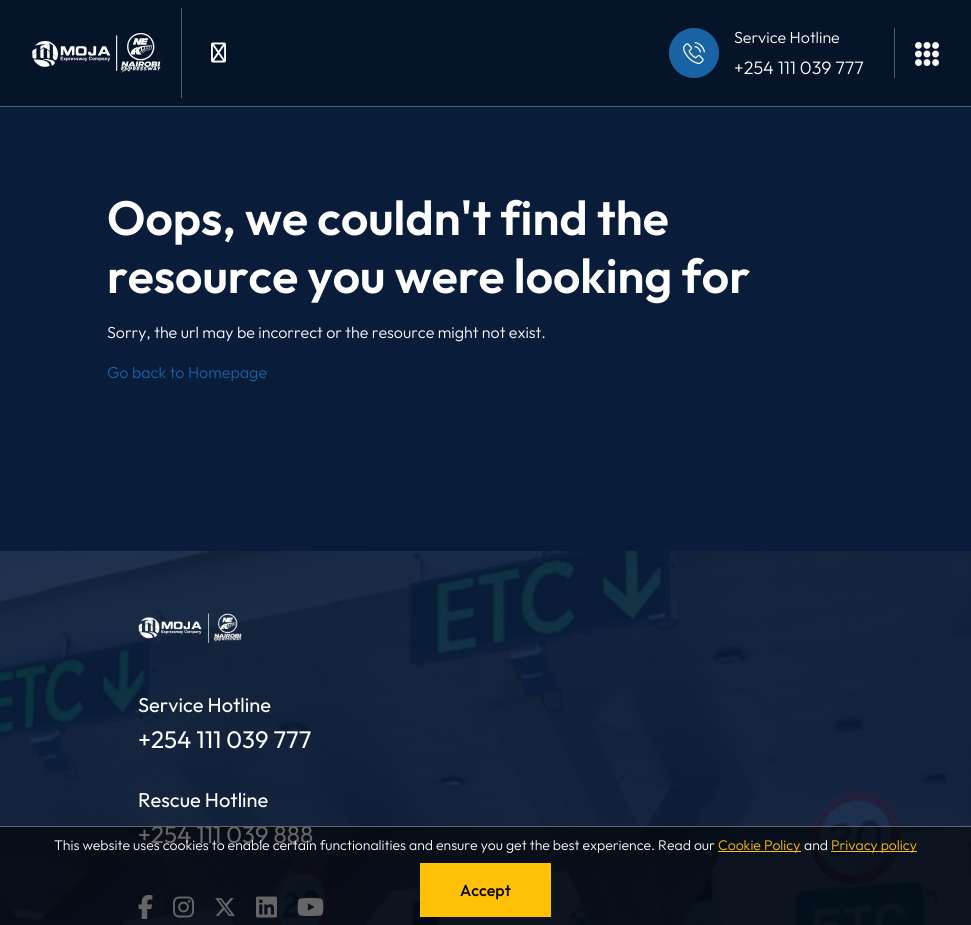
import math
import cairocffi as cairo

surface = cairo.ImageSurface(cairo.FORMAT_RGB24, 971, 925)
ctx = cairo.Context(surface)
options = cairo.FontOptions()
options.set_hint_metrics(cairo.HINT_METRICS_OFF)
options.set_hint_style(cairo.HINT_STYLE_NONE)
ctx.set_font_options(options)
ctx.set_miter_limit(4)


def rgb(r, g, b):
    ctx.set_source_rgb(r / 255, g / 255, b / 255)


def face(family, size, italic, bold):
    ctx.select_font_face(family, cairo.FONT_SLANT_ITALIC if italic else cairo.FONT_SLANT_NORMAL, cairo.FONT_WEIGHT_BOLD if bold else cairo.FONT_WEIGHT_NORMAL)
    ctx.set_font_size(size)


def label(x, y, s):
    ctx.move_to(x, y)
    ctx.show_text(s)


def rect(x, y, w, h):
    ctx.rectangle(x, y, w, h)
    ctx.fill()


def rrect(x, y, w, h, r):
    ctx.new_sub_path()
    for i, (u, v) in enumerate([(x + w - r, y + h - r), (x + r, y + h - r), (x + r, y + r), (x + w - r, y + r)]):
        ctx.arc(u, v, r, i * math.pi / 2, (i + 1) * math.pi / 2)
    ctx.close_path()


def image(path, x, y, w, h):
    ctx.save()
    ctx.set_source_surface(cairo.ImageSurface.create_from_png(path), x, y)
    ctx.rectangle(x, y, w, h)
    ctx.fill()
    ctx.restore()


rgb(9, 28, 58)
ctx.paint()
rgb(83, 96, 117)
rect(0, 106, 971, 1)
rgb(6, 20, 41)
rect(0, 0, 971, 106)
rgb(81, 91, 105)
rect(181, 8, 1, 90)
image('image0.png', 32, 33, 129, 40)
rrect(210.5, 42.5, 19, 21, 5.5)
rgb(5, 18, 37)
ctx.set_line_width(1)
ctx.stroke()
image('image1.png', 211, 42, 15, 21)
rgb(81, 91, 105)
rect(894, 28, 1, 50)
rgb(25, 98, 163)
ctx.arc(694, 53, 25, 0, 2 * math.pi)
ctx.fill()
image('image2.png', 683, 42, 22, 22)
face('Outfit Light', 16, 0, 0)
rgb(255, 255, 255)
label(734, 43, 'Service Hotline')
face('Outfit Light', 18, 0, 0)
label(734, 74, '+254 111 039 777')
image('image3.png', 915, 42, 24, 24)
face('Outfit SemiBold', 48, 0, 0)
label(107, 235, 'Oops, we couldn\'t find the')
label(107, 293, 'resource you were looking for')
face('Outfit Light', 16, 0, 0)
label(107, 338, 'Sorry, the url may be incorrect or the resource might not exist.')
rgb(25, 98, 163)
label(107, 378, 'Go back to Homepage')
image('image4.png', 0, 551, 971, 374)
image('image5.png', 138, 613, 104, 30)
face('Outfit', 20, 0, 0)
rgb(255, 255, 255)
label(138, 712, 'Service Hotline')
face('Outfit', 24, 0, 0)
label(138, 748, '+254 111 039 777')
face('Outfit', 20, 0, 0)
label(138, 807, 'Rescue Hotline')
face('Outfit', 24, 0, 0)
label(138, 843, '+254 111 039 888')
image('image6.png', 138, 895, 15, 24)
image('image7.png', 173, 896, 21, 22)
image('image8.png', 215, 898, 20, 18)
image('image9.png', 256, 896, 21, 22)
image('image10.png', 297, 898, 27, 18)
ctx.set_source_rgba(0, 0, 0, 0.6)
rect(0, 827, 971, 98)
rgb(102, 102, 102)
rect(0, 826, 971, 1)
face('Outfit Light', 14, 0, 0)
rgb(255, 255, 255)
label(54, 850, 'This website uses cookies to enable certain functionalities and ensure you get the best experience. Read our')
rgb(255, 193, 7)
rect(718, 851, 83, 1)
label(718, 850, 'Cookie Policy')
rgb(255, 255, 255)
label(804, 850, 'and')
rgb(255, 193, 7)
rect(831, 851, 86, 1)
label(831, 850, 'Privacy policy')
rect(420, 863, 131, 54)
face('Outfit Medium', 16, 0, 0)
rgb(0, 0, 0)
label(460, 896, 'Accept')
surface.write_to_png('render.png')
